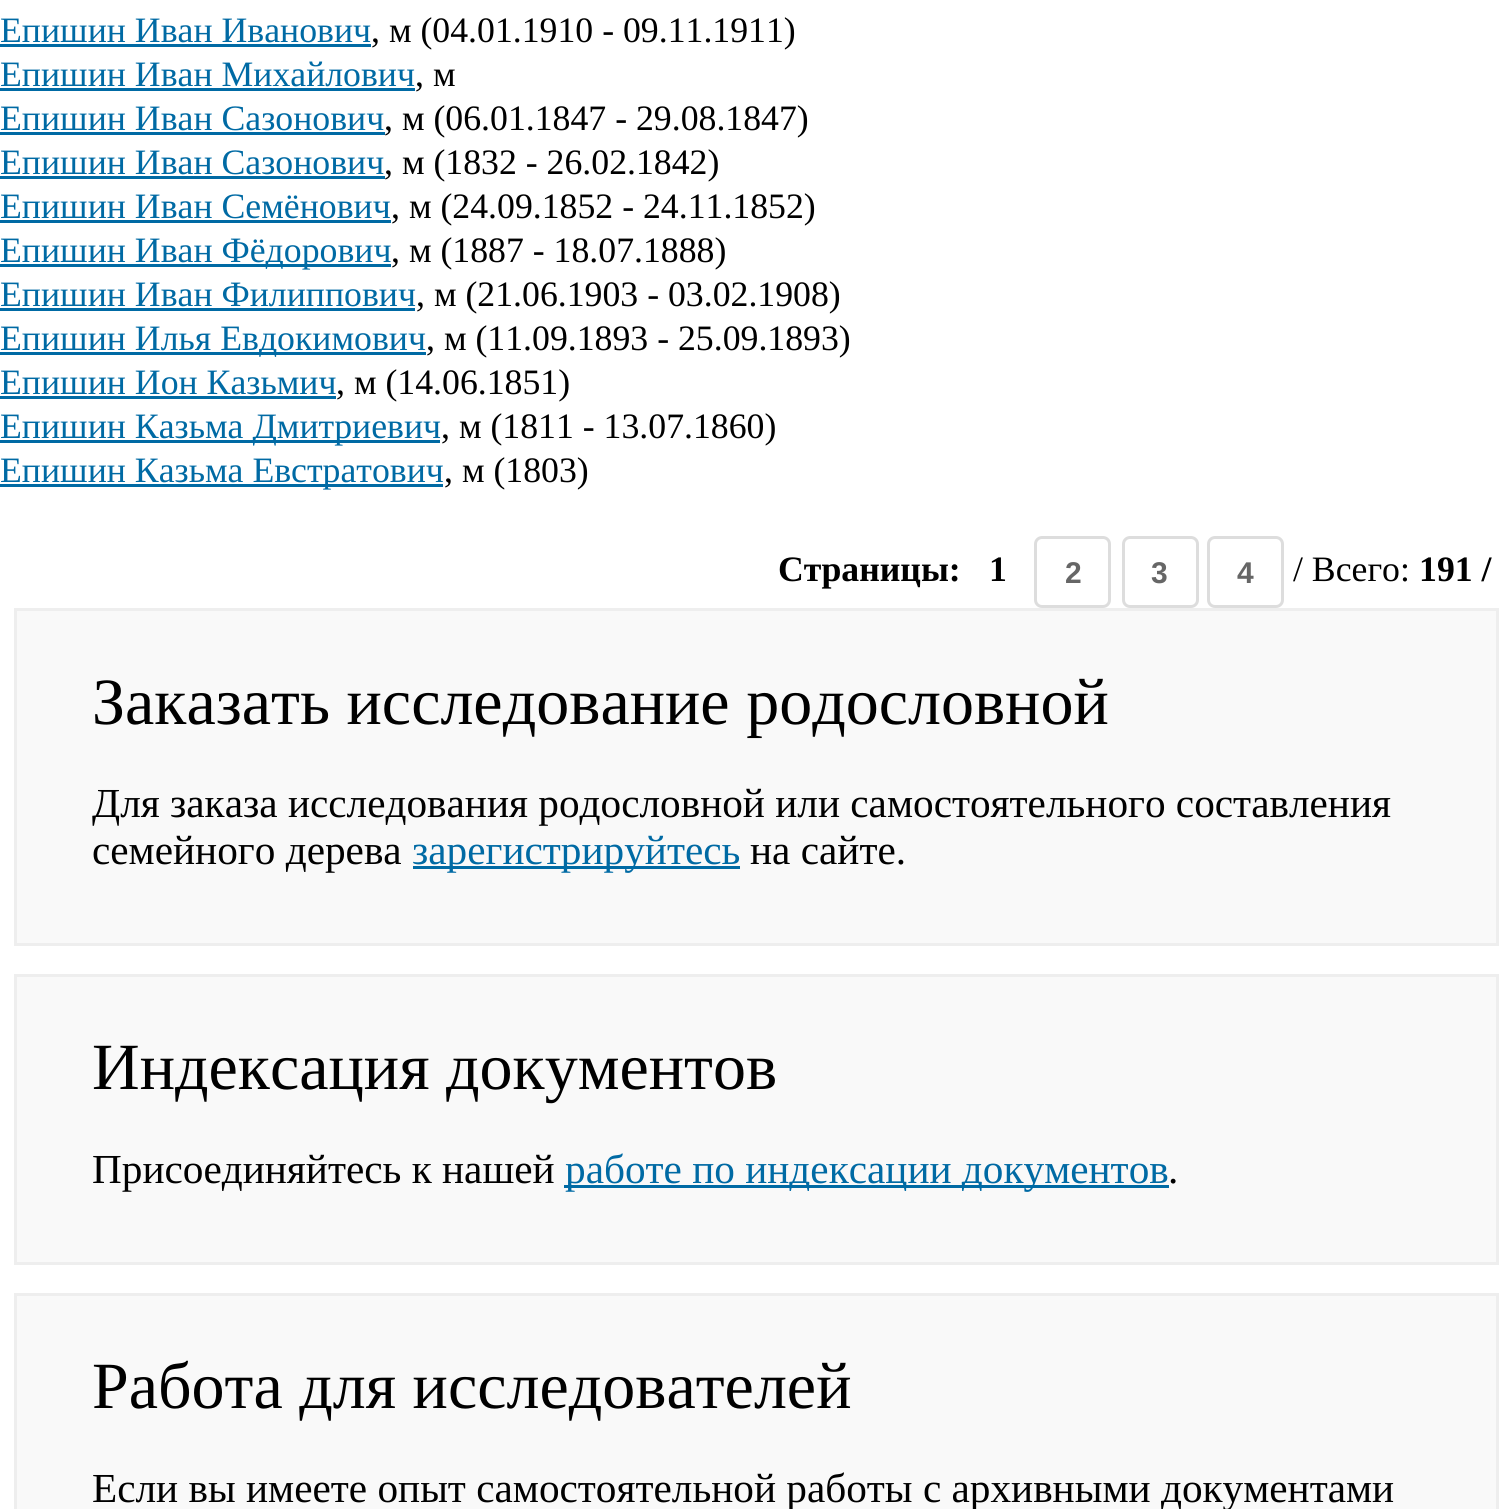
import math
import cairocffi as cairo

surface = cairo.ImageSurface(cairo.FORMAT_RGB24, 1505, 1509)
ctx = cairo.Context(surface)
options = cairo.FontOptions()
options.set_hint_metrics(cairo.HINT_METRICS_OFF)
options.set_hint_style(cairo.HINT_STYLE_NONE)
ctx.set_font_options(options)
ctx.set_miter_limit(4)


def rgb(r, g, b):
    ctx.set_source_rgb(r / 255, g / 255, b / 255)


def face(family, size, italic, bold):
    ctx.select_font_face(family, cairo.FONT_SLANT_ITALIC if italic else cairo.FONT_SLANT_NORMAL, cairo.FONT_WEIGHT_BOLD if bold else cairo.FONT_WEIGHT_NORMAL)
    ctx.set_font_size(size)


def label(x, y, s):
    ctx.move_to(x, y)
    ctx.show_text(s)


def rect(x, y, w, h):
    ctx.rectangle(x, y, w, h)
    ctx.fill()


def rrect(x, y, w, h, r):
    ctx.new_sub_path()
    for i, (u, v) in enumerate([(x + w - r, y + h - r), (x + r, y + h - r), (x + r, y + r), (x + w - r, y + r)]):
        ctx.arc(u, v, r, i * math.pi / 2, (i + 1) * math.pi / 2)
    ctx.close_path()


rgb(255, 255, 255)
ctx.paint()
face('Liberation Serif', 35.75, 0, 0)
rgb(0, 106, 164)
label(0, 42, 'Епишин Иван Иванович')
rect(0, 44, 371, 3)
rgb(0, 0, 0)
label(371, 42, ', м (04.01.1910 - 09.11.1911)')
rgb(0, 106, 164)
label(0, 86, 'Епишин Иван Михайлович')
rect(0, 88, 415, 3)
rgb(0, 0, 0)
label(415, 86, ', м')
rgb(0, 106, 164)
label(0, 130, 'Епишин Иван Сазонович')
rect(0, 132, 385, 3)
rgb(0, 0, 0)
label(384, 130, ', м (06.01.1847 - 29.08.1847)')
rgb(0, 106, 164)
label(0, 174, 'Епишин Иван Сазонович')
rect(0, 176, 385, 3)
rgb(0, 0, 0)
label(384, 174, ', м (1832 - 26.02.1842)')
rgb(0, 106, 164)
label(0, 218, 'Епишин Иван Семёнович')
rect(0, 220, 391, 3)
rgb(0, 0, 0)
label(391, 218, ', м (24.09.1852 - 24.11.1852)')
rgb(0, 106, 164)
rect(0, 264, 391, 3)
label(0, 262, 'Епишин Иван Фёдорович')
rgb(0, 0, 0)
label(391, 262, ', м (1887 - 18.07.1888)')
rgb(0, 106, 164)
label(0, 306, 'Епишин Иван Филиппович')
rect(0, 308, 415, 3)
rgb(0, 0, 0)
label(416, 306, ', м (21.06.1903 - 03.02.1908)')
rgb(0, 106, 164)
rect(0, 352, 426, 3)
label(0, 350, 'Епишин Илья Евдокимович')
rgb(0, 0, 0)
label(426, 350, ', м (11.09.1893 - 25.09.1893)')
rgb(0, 106, 164)
label(0, 394, 'Епишин Ион Казьмич')
rect(0, 396, 336, 3)
rgb(0, 0, 0)
label(336, 394, ', м (14.06.1851)')
rgb(0, 106, 164)
rect(0, 440, 440, 3)
label(0, 438, 'Епишин Казьма Дмитриевич')
rgb(0, 0, 0)
label(441, 438, ', м (1811 - 13.07.1860)')
rgb(0, 106, 164)
rect(0, 484, 443, 3)
label(0, 482, 'Епишин Казьма Евстратович')
rgb(0, 0, 0)
label(444, 482, ', м (1803)')
face('Liberation Serif', 35.75, 0, 1)
label(778, 581, 'Страницы:')
label(989, 581, '1')
rrect(1035.5, 537.5, 74, 69, 6.5)
rgb(221, 221, 221)
ctx.set_line_width(3)
ctx.stroke()
face('Liberation Sans', 30, 0, 1)
rgb(102, 102, 102)
label(1065, 583, '2')
rrect(1123.5, 537.5, 74, 69, 6.5)
rgb(221, 221, 221)
ctx.stroke()
rgb(102, 102, 102)
label(1151, 583, '3')
rrect(1208.5, 537.5, 74, 69, 6.5)
rgb(221, 221, 221)
ctx.stroke()
rgb(102, 102, 102)
label(1237, 583, '4')
face('Liberation Serif', 35.75, 0, 0)
rgb(0, 0, 0)
label(1293, 581, '/ Всего:')
face('Liberation Serif', 35.75, 0, 1)
label(1419, 581, '191 /')
rgb(249, 249, 249)
ctx.rectangle(15.5, 609.5, 1482, 335)
ctx.fill_preserve()
rgb(238, 238, 238)
ctx.stroke()
face('Liberation Serif', 66, 0, 0)
rgb(0, 0, 0)
label(92, 724, 'Заказать исследование родословной')
face('Liberation Serif', 41.25, 0, 0)
label(92, 817, 'Для заказа исследования родословной или самостоятельного составления')
label(92, 864, 'семейного дерева')
rgb(0, 106, 164)
rect(413, 866, 327, 3)
label(412, 864, 'зарегистрируйтесь')
rgb(0, 0, 0)
label(750, 864, 'на сайте.')
rgb(249, 249, 249)
ctx.rectangle(15.5, 975.5, 1482, 288)
ctx.fill_preserve()
rgb(238, 238, 238)
ctx.stroke()
face('Liberation Serif', 66, 0, 0)
rgb(0, 0, 0)
label(92, 1089, 'Индексация документов')
face('Liberation Serif', 41.25, 0, 0)
label(92, 1183, 'Присоединяйтесь к нашей')
rgb(0, 106, 164)
rect(564, 1185, 605, 3)
label(565, 1183, 'работе по индексации документов')
rgb(0, 0, 0)
label(1168, 1183, '.')
rgb(249, 249, 249)
ctx.rectangle(15.5, 1294.5, 1482, 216)
ctx.fill_preserve()
rgb(238, 238, 238)
ctx.stroke()
face('Liberation Serif', 66, 0, 0)
rgb(0, 0, 0)
label(92, 1408, 'Работа для исследователей')
face('Liberation Serif', 41.25, 0, 0)
label(92, 1502, 'Если вы имеете опыт самостоятельной работы с архивными документами')
surface.write_to_png('render.png')
